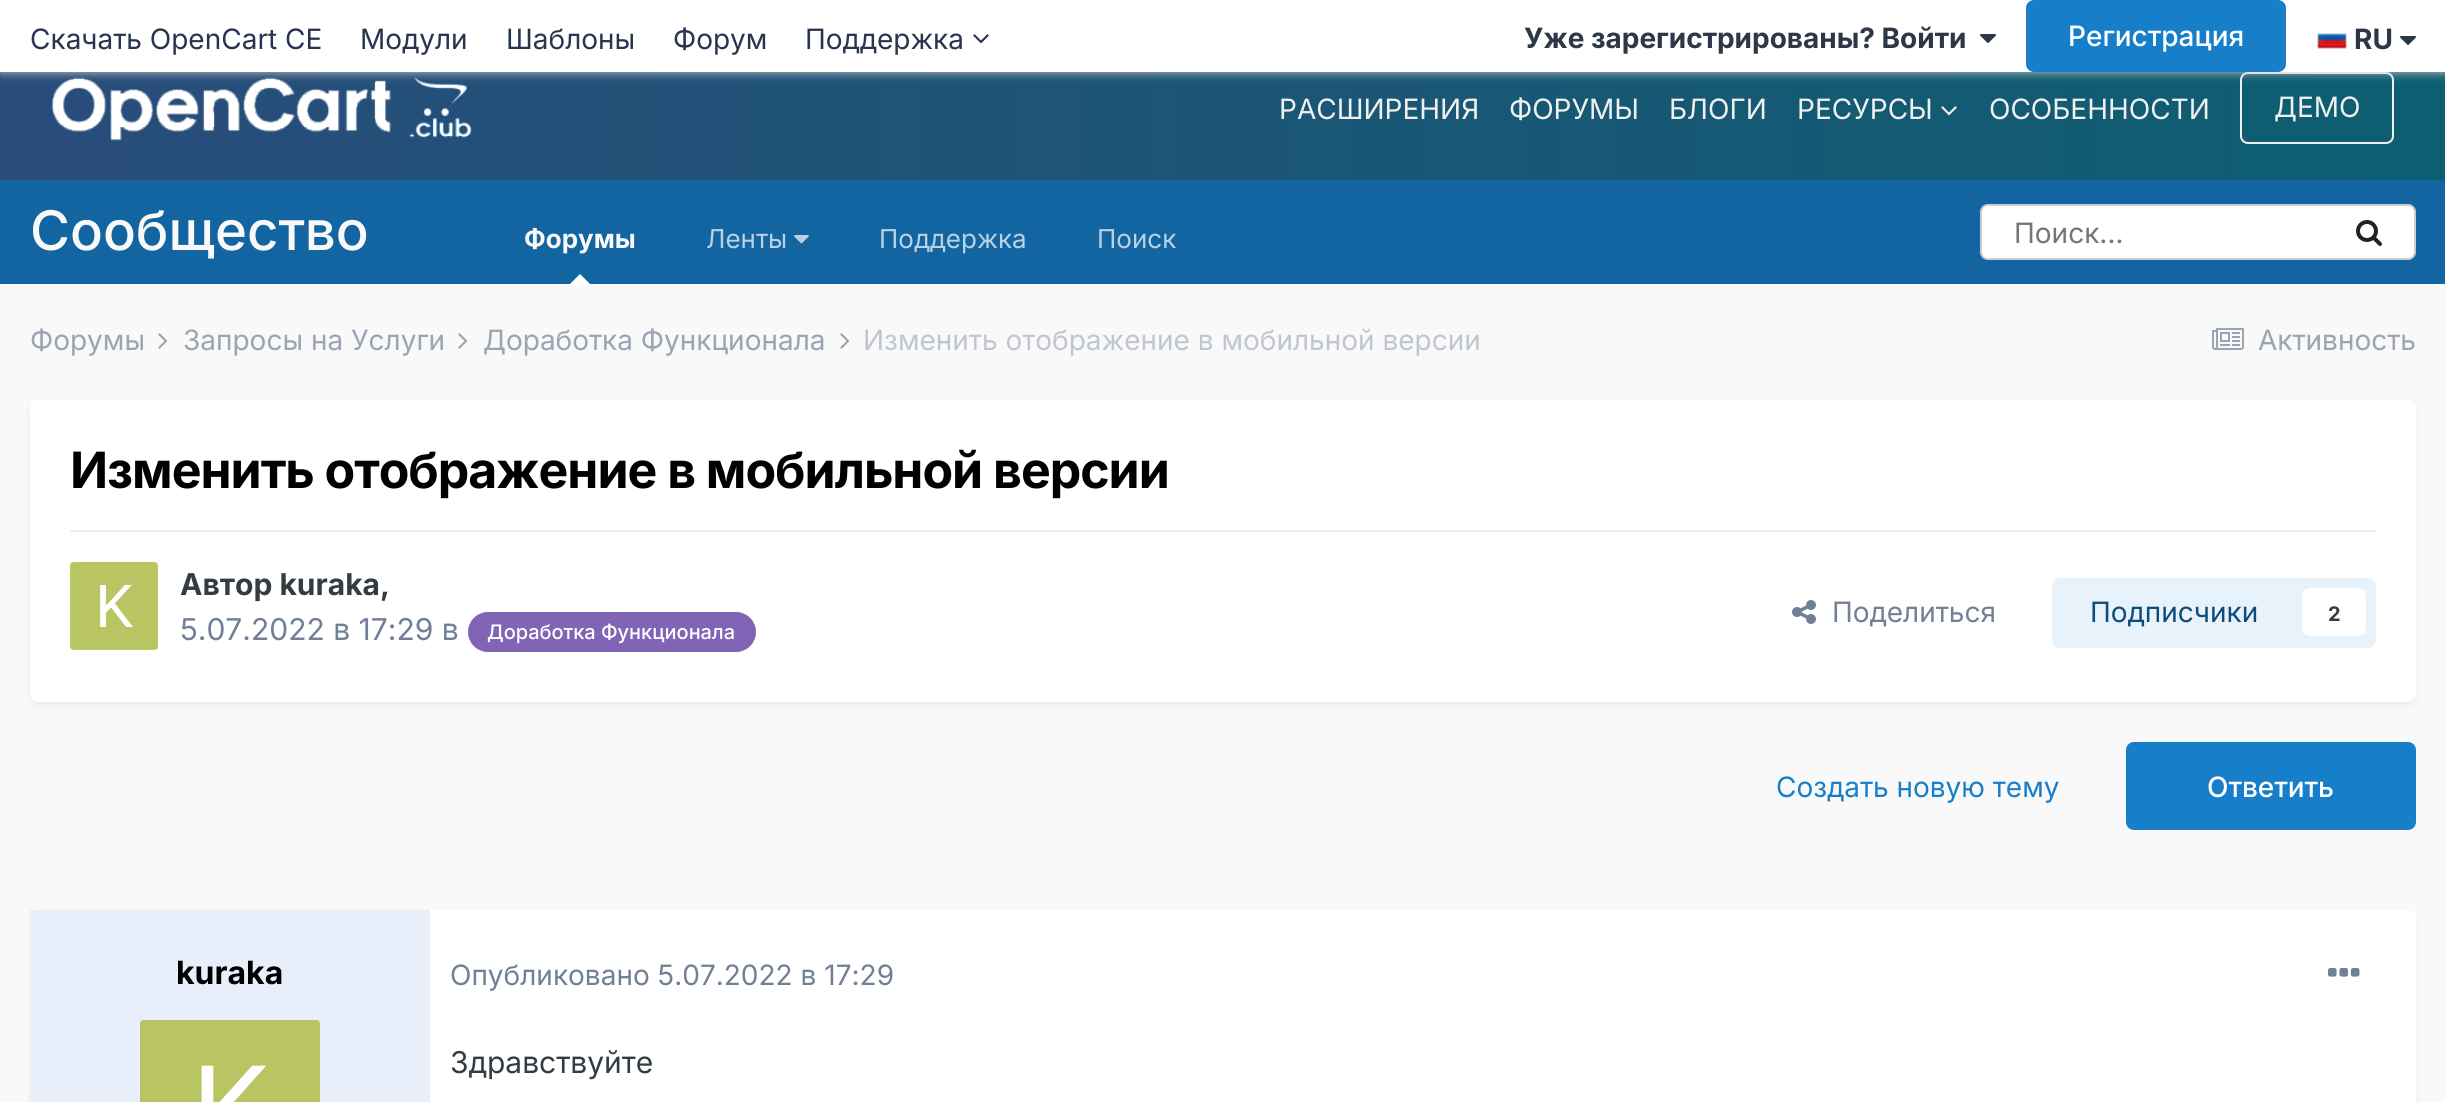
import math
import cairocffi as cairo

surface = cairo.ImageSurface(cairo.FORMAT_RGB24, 2445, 1102)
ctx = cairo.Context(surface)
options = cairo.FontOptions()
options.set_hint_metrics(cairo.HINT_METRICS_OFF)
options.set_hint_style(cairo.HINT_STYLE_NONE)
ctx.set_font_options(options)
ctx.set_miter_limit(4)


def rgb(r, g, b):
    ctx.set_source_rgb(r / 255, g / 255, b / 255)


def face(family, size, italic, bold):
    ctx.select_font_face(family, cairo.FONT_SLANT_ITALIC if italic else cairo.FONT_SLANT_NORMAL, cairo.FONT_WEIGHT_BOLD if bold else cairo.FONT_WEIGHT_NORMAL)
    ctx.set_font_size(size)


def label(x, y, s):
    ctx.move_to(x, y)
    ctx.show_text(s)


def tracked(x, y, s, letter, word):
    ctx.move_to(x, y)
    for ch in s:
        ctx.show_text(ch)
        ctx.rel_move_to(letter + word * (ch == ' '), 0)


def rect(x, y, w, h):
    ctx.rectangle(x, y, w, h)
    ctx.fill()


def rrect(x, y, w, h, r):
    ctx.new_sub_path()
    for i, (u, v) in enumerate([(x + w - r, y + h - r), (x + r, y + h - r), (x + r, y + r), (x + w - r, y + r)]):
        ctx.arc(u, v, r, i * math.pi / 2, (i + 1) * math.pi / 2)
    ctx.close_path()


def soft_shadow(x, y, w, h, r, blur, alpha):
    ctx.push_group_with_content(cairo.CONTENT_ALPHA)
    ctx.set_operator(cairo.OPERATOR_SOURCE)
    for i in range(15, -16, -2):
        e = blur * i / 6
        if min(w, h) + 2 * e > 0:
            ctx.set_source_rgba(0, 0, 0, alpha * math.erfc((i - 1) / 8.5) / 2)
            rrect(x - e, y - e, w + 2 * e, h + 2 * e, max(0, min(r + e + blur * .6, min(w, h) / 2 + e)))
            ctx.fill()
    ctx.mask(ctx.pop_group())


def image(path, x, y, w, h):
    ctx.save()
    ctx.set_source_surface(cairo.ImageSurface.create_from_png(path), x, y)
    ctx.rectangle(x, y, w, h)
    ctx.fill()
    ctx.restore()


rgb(249, 249, 249)
ctx.paint()
gradient = cairo.LinearGradient(0, 108, 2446, 108)
gradient.add_color_stop_rgba(0, 0.161, 0.298, 0.482, 1)
gradient.add_color_stop_rgba(1, 0.051, 0.369, 0.443, 1)
ctx.set_source(gradient)
rect(0, 72, 2445, 108)
image('image3.png', 52, 76, 420, 65)
rrect(2241, 73, 152, 70, 7)
rgb(240, 240, 240)
ctx.stroke()
rgb(204, 204, 204)
soft_shadow(0, 0, 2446, 72, 0, 5, 1)
rgb(255, 255, 255)
rect(0, 0, 2445, 72)
face('Inter', 28, 0, 0)
rgb(39, 53, 80)
label(30, 49, 'Скачать OpenCart CE')
label(360, 49, 'Модули')
label(506, 49, 'Шаблоны')
label(673, 49, 'Форум')
label(805, 49, 'Поддержка')
image('image0.png', 973, 34, 16, 10)
face('Inter', 28, 0, 1)
rgb(45, 55, 72)
label(1524, 48, 'Уже зарегистрированы? Войти')
image('image1.png', 1980, 34, 16, 9)
rgb(23, 126, 201)
rrect(2026, 0, 260, 72, 8)
ctx.fill()
face('Inter Medium', 28, 0, 0)
rgb(255, 255, 255)
label(2068, 46, 'Регистрация')
image('image2.png', 2317, 32, 30, 17)
face('Inter', 28, 0, 1)
rgb(45, 55, 72)
label(2354, 49, 'RU')
image('image1.png', 2400, 36, 16, 9)
face('Inter', 28, 0, 0)
rgb(240, 240, 240)
label(1279, 119, 'РАСШИРЕНИЯ')
label(1509, 119, 'ФОРУМЫ')
label(1669, 119, 'БЛОГИ')
label(1797, 119, 'РЕСУРСЫ')
image('image4.png', 1941, 106, 16, 10)
label(1989, 119, 'ОСОБЕННОСТИ')
label(2274, 117, 'ДЕМО')
rgb(18, 101, 161)
rect(0, 180, 2445, 104)
face('Inter Medium', 54.5, 0, 0)
rgb(249, 249, 249)
label(30, 250, 'Сообщество')
face('Inter', 26, 0, 1)
label(524, 248, 'Форумы')
rgb(255, 255, 255)
ctx.new_path()
ctx.move_to(592, 286)
ctx.line_to(568, 286)
ctx.line_to(580, 274)
ctx.close_path()
ctx.fill()
rgb(249, 249, 249)
ctx.new_path()
ctx.move_to(602, 302)
ctx.line_to(562, 302)
ctx.line_to(582, 282)
ctx.close_path()
ctx.fill()
face('Inter', 26, 0, 0)
rgb(184, 209, 227)
label(706, 248, 'Ленты')
image('image5.png', 794, 235, 15, 9)
label(879, 248, 'Поддержка')
label(1097, 248, 'Поиск')
rgb(255, 255, 255)
rrect(1981, 205, 434, 54, 7)
ctx.fill_preserve()
rgb(204, 204, 204)
ctx.stroke()
face('Inter', 28, 0, 0)
rgb(117, 117, 117)
label(2014, 243, 'Поиск...')
image('image6.png', 2356, 220, 26, 26)
rgb(154, 164, 180)
label(30, 350, 'Форумы')
image('image7.png', 158, 333, 10, 16)
label(183, 350, 'Запросы на Услуги')
image('image7.png', 458, 333, 10, 16)
label(483, 350, 'Доработка Функционала')
image('image7.png', 840, 333, 10, 16)
rgb(192, 198, 208)
label(863, 350, 'Изменить отображение в мобильной версии')
image('image8.png', 2212, 328, 32, 22)
rgb(154, 164, 180)
label(2258, 350, 'Активность')
rgb(45, 55, 72)
soft_shadow(32, 406, 2382, 298, 6, 4, 0.1)
rgb(255, 255, 255)
rrect(30, 400, 2386, 302, 8)
ctx.fill()
face('Inter', 50, 0, 1)
rgb(0, 0, 0)
tracked(70, 488, 'Изменить отображение в мобильной версии', -1, 0)
rgb(239, 239, 240)
rect(70, 530, 2306, 2)
image('image9.png', 70, 562, 88, 88)
face('Inter', 30, 0, 1)
rgb(53, 60, 65)
label(180, 595, 'Автор kuraka,')
face('Inter', 30, 0, 0)
rgb(113, 128, 150)
label(180, 640, '5.07.2022 в 17:29 в')
rgb(129, 100, 181)
rrect(468, 612, 288, 40, 20)
ctx.fill()
face('Inter Medium', 20, 0, 0)
rgb(255, 255, 255)
label(487, 639, 'Доработка Функционала')
image('image10.png', 1792, 600, 24, 24)
face('Inter', 28, 0, 0)
rgb(113, 128, 150)
label(1832, 622, 'Поделиться')
rgb(232, 242, 250)
rrect(2052, 578, 324, 70, 8)
ctx.fill()
rgb(14, 76, 121)
label(2090, 622, 'Подписчики')
rgb(255, 255, 255)
rrect(2302, 588, 64, 48, 8)
ctx.fill()
face('Inter', 20, 0, 1)
rgb(53, 60, 65)
label(2328, 621, '2')
face('Inter', 28, 0, 0)
rgb(23, 126, 201)
label(1776, 797, 'Создать новую тему')
rrect(2126, 742, 290, 88, 8)
ctx.fill()
face('Inter Medium', 28, 0, 0)
rgb(255, 255, 255)
label(2207, 797, 'Ответить')
rgb(45, 55, 72)
soft_shadow(32, 916, 2382, 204, 6, 4, 0.1)
rgb(255, 255, 255)
rrect(30, 910, 2386, 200, 8)
ctx.fill()
rgb(232, 239, 251)
rect(30, 910, 400, 192)
face('Inter', 32, 0, 1)
rgb(0, 0, 0)
label(176, 984, 'kuraka')
image('image11.png', 140, 1020, 180, 82)
face('Inter', 28, 0, 0)
rgb(113, 128, 150)
label(450, 985, 'Опубликовано 5.07.2022 в 17:29')
image('image12.png', 2328, 968, 32, 9)
face('Inter', 30, 0, 0)
rgb(53, 60, 65)
label(450, 1073, 'Здравствуйте')
surface.write_to_png('render.png')
